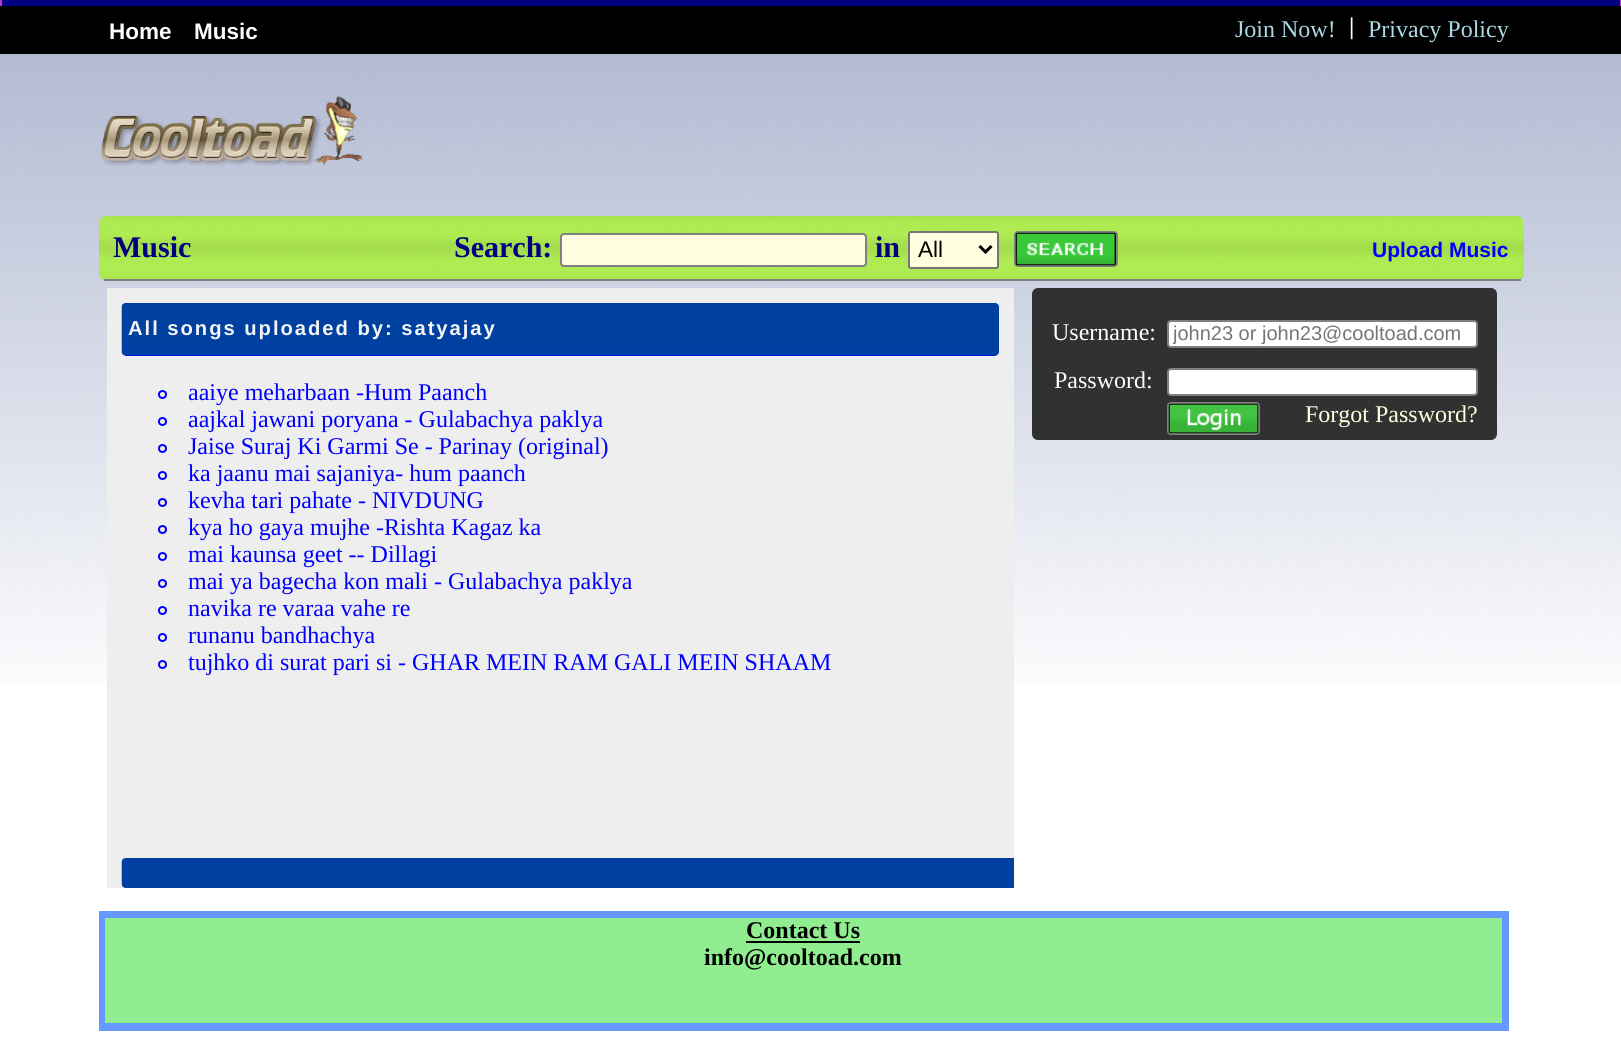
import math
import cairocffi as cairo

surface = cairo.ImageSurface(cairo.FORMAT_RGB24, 1621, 1055)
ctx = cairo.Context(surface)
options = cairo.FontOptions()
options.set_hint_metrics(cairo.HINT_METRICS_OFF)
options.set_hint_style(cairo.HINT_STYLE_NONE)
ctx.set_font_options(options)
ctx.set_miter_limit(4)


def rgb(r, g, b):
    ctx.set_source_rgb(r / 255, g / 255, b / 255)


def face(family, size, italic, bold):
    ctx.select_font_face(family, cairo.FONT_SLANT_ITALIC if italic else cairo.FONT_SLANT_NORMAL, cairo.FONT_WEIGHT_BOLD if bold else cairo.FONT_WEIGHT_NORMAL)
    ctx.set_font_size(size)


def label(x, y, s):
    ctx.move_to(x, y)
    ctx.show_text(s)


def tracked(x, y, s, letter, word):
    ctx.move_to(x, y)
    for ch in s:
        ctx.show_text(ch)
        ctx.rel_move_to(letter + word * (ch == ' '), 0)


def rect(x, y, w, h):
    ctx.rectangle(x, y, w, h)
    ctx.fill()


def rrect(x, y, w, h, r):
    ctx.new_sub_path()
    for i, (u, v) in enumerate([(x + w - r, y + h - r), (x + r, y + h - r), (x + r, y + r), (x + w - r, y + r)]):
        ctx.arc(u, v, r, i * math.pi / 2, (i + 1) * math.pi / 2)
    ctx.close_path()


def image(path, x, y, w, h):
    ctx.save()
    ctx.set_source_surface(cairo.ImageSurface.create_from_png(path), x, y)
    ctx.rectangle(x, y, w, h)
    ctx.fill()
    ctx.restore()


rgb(255, 255, 255)
ctx.paint()
image('image0.png', 0, 54, 1621, 630)
rgb(0, 0, 128)
rect(0, 0, 1621, 6)
rgb(180, 62, 198)
rect(1620, 0, 1, 6)
rect(0, 0, 2, 6)
rgb(0, 0, 0)
rect(0, 6, 1621, 48)
face('Liberation Sans', 22.5, 0, 1)
rgb(255, 255, 255)
label(109, 39, 'Home')
label(194, 39, 'Music')
face('Liberation Serif', 24, 0, 0)
rgb(173, 216, 230)
label(1235, 37, 'Join Now!')
face('Liberation Serif', 24, 0, 1)
rgb(255, 255, 255)
label(1349, 34, '|')
face('Liberation Serif', 24, 0, 0)
rgb(173, 216, 230)
label(1368, 37, 'Privacy Policy')
image('image2.png', 314, 96, 49, 69)
image('image1.png', 101, 115, 221, 51)
rrect(99, 216, 1425, 65, 8)
ctx.fill()
image('image3.png', 99, 216, 1425, 64)
rgb(128, 128, 128)
rect(104, 279, 1417, 2)
face('Liberation Serif', 30, 0, 1)
rgb(0, 0, 128)
label(113, 257, 'Music')
label(454, 257, 'Search:')
rgb(255, 255, 224)
rrect(561, 234, 305, 32, 3)
ctx.fill_preserve()
rgb(128, 128, 128)
ctx.stroke()
rgb(0, 0, 128)
label(875, 257, 'in')
rgb(255, 255, 224)
rrect(909, 232, 89, 36, 2)
ctx.fill_preserve()
rgb(118, 118, 118)
ctx.stroke()
ctx.new_path()
ctx.move_to(979.5, 246)
ctx.line_to(985.5, 252)
ctx.line_to(991.5, 246)
rgb(0, 0, 0)
ctx.set_line_width(3)
ctx.stroke()
face('Liberation Sans', 22.5, 0, 0)
label(918, 257, 'All')
rrect(1015, 232, 102, 34, 3)
rgb(128, 128, 128)
ctx.set_line_width(2)
ctx.stroke()
image('image4.png', 1015, 232, 101, 34)
face('Liberation Sans', 21, 0, 1)
rgb(0, 0, 255)
label(1372, 257, 'Upload Music')
rgb(238, 238, 238)
rect(107, 288, 907, 600)
rgb(0, 0, 255)
rrect(122, 303, 877, 53, 5)
ctx.fill()
image('image5.png', 121, 303, 878, 53)
face('Liberation Sans', 20.25, 0, 1)
rgb(245, 245, 245)
tracked(128, 335, 'All songs uploaded by: satyajay', 1.95, 0)
ctx.new_path()
ctx.arc(162.5, 394.5, 3.5, 0, 2 * math.pi)
rgb(0, 0, 255)
ctx.stroke()
face('Liberation Serif', 24, 0, 0)
label(188, 400, 'aaiye meharbaan -Hum Paanch')
ctx.new_path()
ctx.arc(162.5, 421.5, 3.5, 0, 2 * math.pi)
ctx.stroke()
label(188, 427, 'aajkal jawani poryana - Gulabachya paklya')
ctx.new_path()
ctx.arc(162.5, 448.5, 3.5, 0, 2 * math.pi)
ctx.stroke()
label(188, 454, 'Jaise Suraj Ki Garmi Se - Parinay (original)')
ctx.new_path()
ctx.arc(162.5, 475.5, 3.5, 0, 2 * math.pi)
ctx.stroke()
label(188, 481, 'ka jaanu mai sajaniya- hum paanch')
ctx.new_path()
ctx.arc(162.5, 502.5, 3.5, 0, 2 * math.pi)
ctx.stroke()
label(188, 508, 'kevha tari pahate - NIVDUNG')
ctx.new_path()
ctx.arc(162.5, 529.5, 3.5, 0, 2 * math.pi)
ctx.stroke()
label(188, 535, 'kya ho gaya mujhe -Rishta Kagaz ka')
ctx.new_path()
ctx.arc(162.5, 556.5, 3.5, 0, 2 * math.pi)
ctx.stroke()
label(188, 562, 'mai kaunsa geet -- Dillagi')
ctx.new_path()
ctx.arc(162.5, 583.5, 3.5, 0, 2 * math.pi)
ctx.stroke()
label(188, 589, 'mai ya bagecha kon mali - Gulabachya paklya')
ctx.new_path()
ctx.arc(162.5, 610.5, 3.5, 0, 2 * math.pi)
ctx.stroke()
label(188, 616, 'navika re varaa vahe re')
ctx.new_path()
ctx.arc(162.5, 637.5, 3.5, 0, 2 * math.pi)
ctx.stroke()
label(188, 643, 'runanu bandhachya')
ctx.new_path()
ctx.arc(162.5, 664.5, 3.5, 0, 2 * math.pi)
ctx.stroke()
label(188, 670, 'tujhko di surat pari si - GHAR MEIN RAM GALI MEIN SHAAM')
image('image6.png', 121, 858, 893, 30)
rgb(49, 49, 49)
rrect(1032, 288, 465, 152, 6)
ctx.fill()
rgb(255, 255, 255)
label(1052, 340, 'Username:')
rrect(1168, 321, 309, 26, 3)
ctx.fill_preserve()
rgb(128, 128, 128)
ctx.stroke()
ctx.save()
ctx.rectangle(1173, 323, 300, 22)
ctx.clip()
face('Liberation Sans', 20, 0, 0)
rgb(117, 117, 117)
label(1173, 340, 'john23 or john23@cooltoad.com')
ctx.restore()
rgb(255, 255, 255)
label(1054, 388, 'Password:')
rrect(1168, 369, 309, 26, 3)
ctx.fill_preserve()
rgb(128, 128, 128)
ctx.stroke()
rrect(1168, 403, 91, 31, 3)
ctx.stroke()
image('image7.png', 1168, 403, 91, 31)
rgb(255, 255, 224)
label(1305, 422, 'Forgot Password?')
rgb(102, 153, 255)
rect(99, 911, 1410, 120)
rgb(144, 238, 144)
rect(105, 918, 1397, 105)
face('Liberation Serif', 24, 0, 1)
rgb(0, 0, 0)
label(746, 938, 'Contact Us')
rect(746, 941, 114, 2)
label(704, 965, 'info@cooltoad.com')
surface.write_to_png('render.png')
